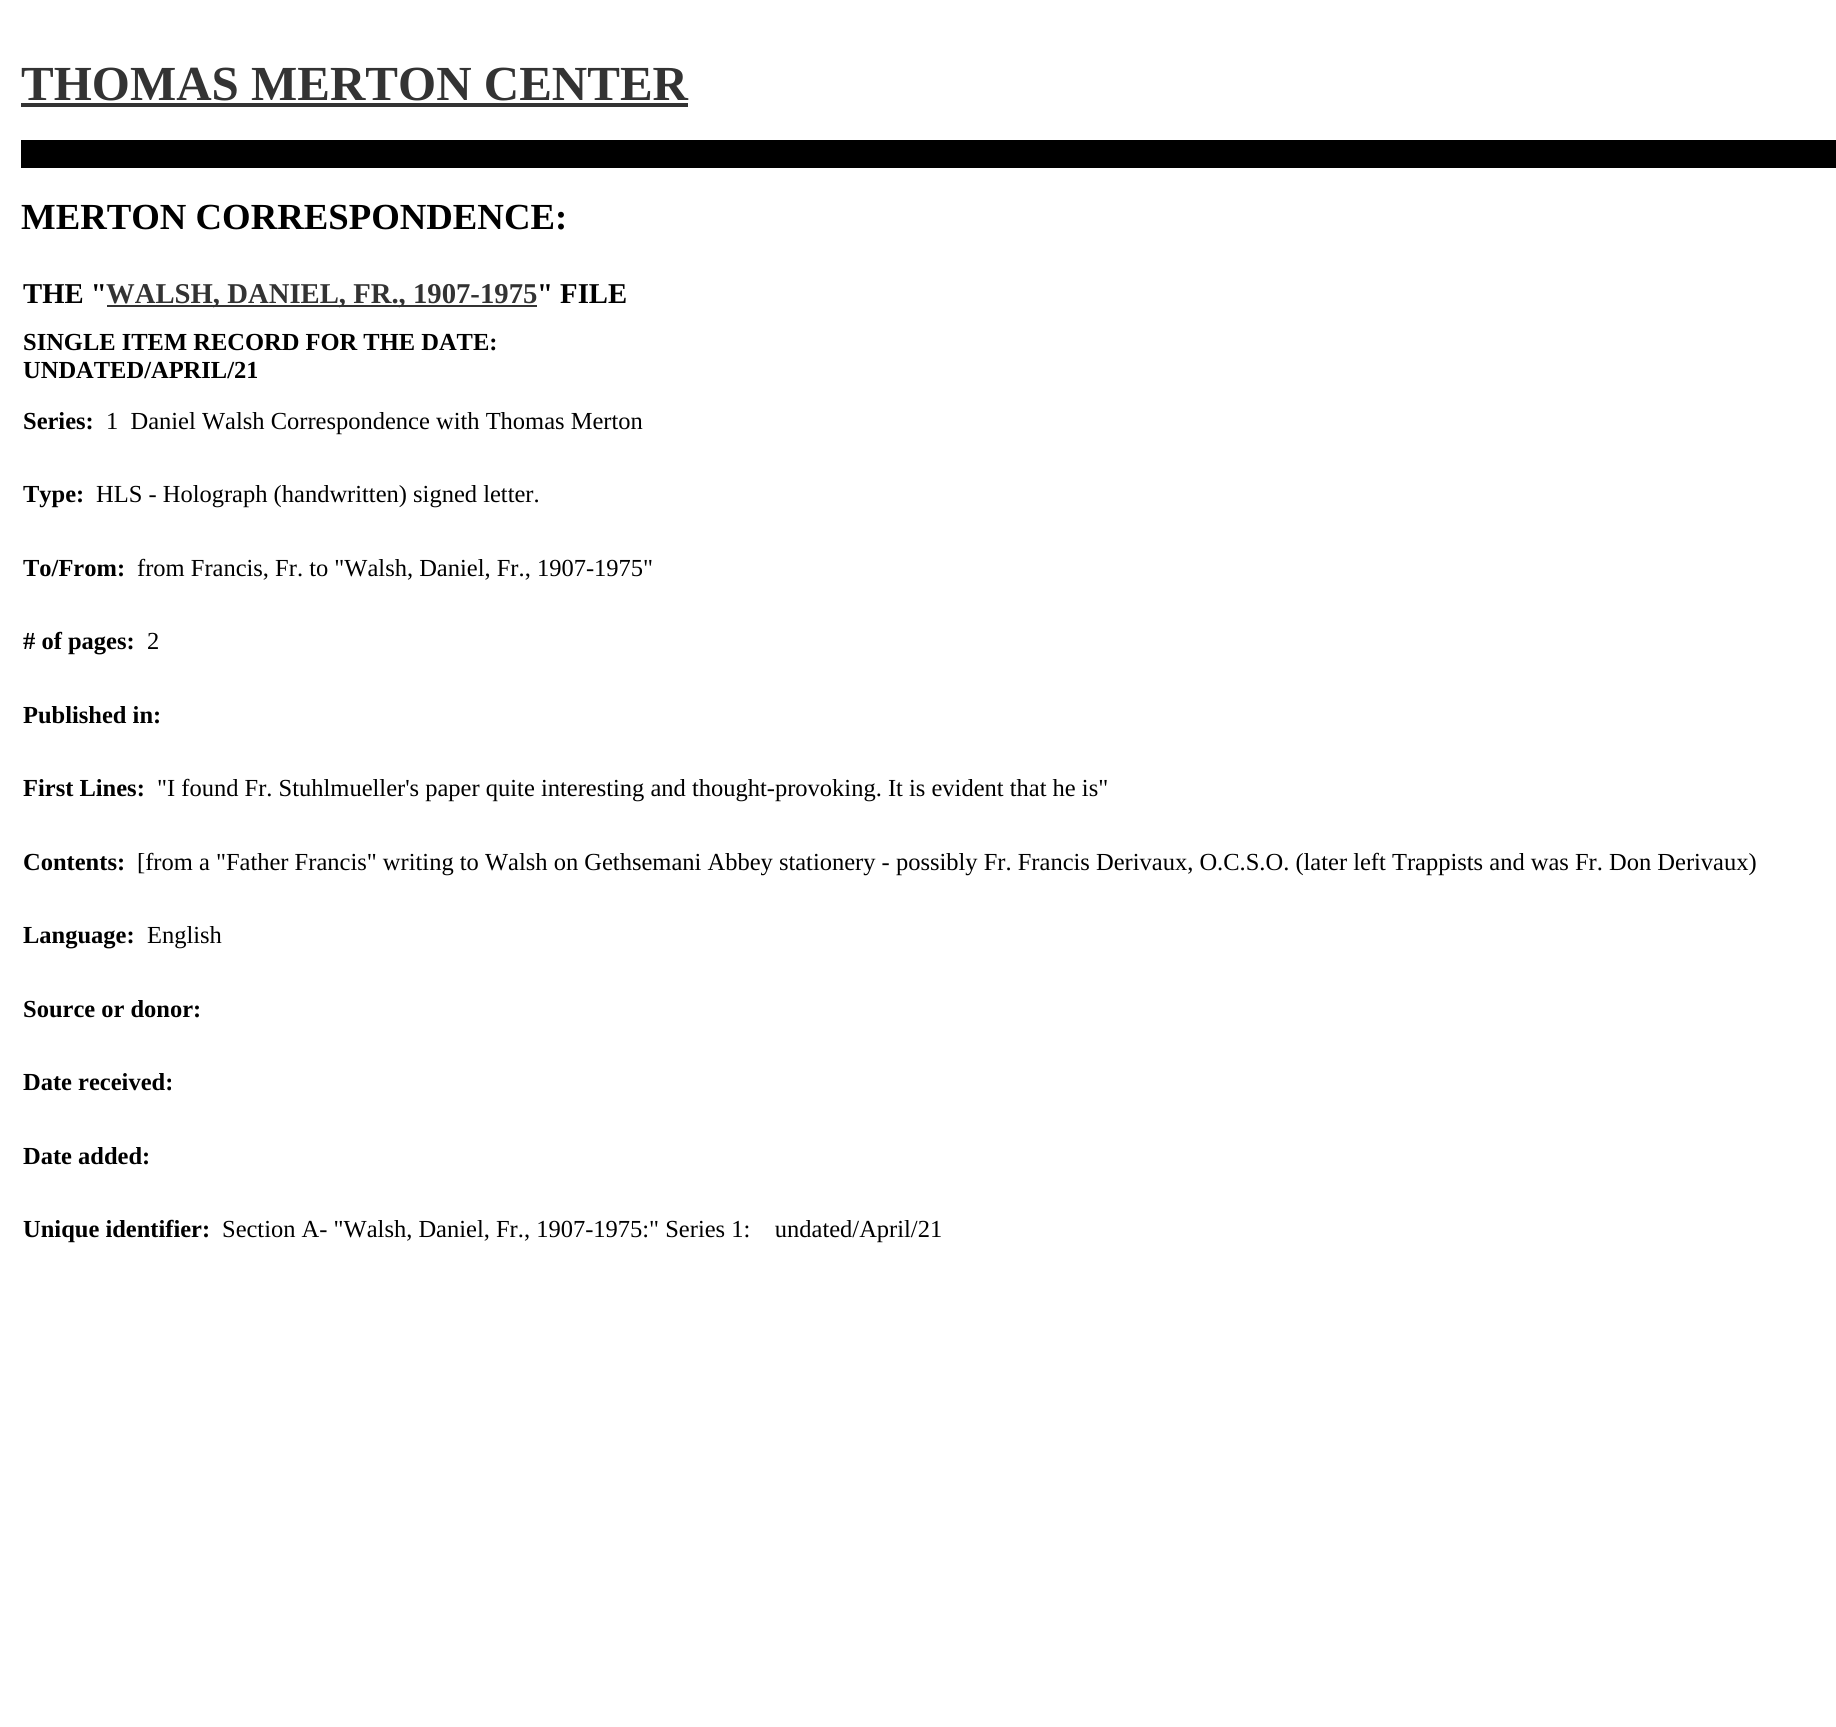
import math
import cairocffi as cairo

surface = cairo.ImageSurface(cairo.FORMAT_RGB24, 1836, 1727)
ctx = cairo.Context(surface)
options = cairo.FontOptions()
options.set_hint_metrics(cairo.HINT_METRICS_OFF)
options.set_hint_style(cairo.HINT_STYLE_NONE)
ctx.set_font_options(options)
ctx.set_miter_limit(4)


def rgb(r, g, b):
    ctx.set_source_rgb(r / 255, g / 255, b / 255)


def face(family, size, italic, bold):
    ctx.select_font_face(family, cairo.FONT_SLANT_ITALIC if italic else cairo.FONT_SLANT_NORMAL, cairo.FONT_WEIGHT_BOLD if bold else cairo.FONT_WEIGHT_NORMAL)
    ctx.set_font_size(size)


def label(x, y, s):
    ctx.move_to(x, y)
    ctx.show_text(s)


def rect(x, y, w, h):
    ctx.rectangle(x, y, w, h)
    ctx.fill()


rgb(255, 255, 255)
ctx.paint()
face('Liberation Serif', 49, 0, 1)
rgb(51, 51, 51)
label(21, 100, 'THOMAS MERTON CENTER')
rect(21, 103, 667, 4)
rgb(0, 0, 0)
rect(21, 140, 1815, 28)
face('Liberation Serif', 36.75, 0, 1)
label(21, 229, 'MERTON CORRESPONDENCE:')
face('Liberation Serif', 28.7, 0, 1)
label(23, 303, 'THE "')
rgb(51, 51, 51)
rect(107, 305, 430, 2)
label(106, 303, 'WALSH, DANIEL, FR., 1907-1975')
rgb(0, 0, 0)
label(537, 303, '" FILE')
face('Liberation Serif', 24.5, 0, 1)
label(23, 350, 'SINGLE ITEM RECORD FOR THE DATE:')
label(23, 378, 'UNDATED/APRIL/21')
label(23, 429, 'Series:')
face('Liberation Serif', 24.5, 0, 0)
label(106, 429, '1  Daniel Walsh Correspondence with Thomas Merton')
face('Liberation Serif', 24.5, 0, 1)
label(23, 502, 'Type:')
face('Liberation Serif', 24.5, 0, 0)
label(96, 502, 'HLS - Holograph (handwritten) signed letter.')
face('Liberation Serif', 24.5, 0, 1)
label(23, 576, 'To/From:')
face('Liberation Serif', 24.5, 0, 0)
label(137, 576, 'from Francis, Fr. to "Walsh, Daniel, Fr., 1907-1975"')
face('Liberation Serif', 24.5, 0, 1)
label(23, 649, '# of pages:')
face('Liberation Serif', 24.5, 0, 0)
label(147, 649, '2')
face('Liberation Serif', 24.5, 0, 1)
label(23, 723, 'Published in:')
label(23, 796, 'First Lines:')
face('Liberation Serif', 24.5, 0, 0)
label(157, 796, '"I found Fr. Stuhlmueller\'s paper quite interesting and thought-provoking. It is evident that he is"')
face('Liberation Serif', 24.5, 0, 1)
label(23, 870, 'Contents:')
face('Liberation Serif', 24.5, 0, 0)
label(137, 870, '[from a "Father Francis" writing to Walsh on Gethsemani Abbey stationery - possibly Fr. Francis Derivaux, O.C.S.O. (later left Trappists and was Fr. Don Derivaux)')
face('Liberation Serif', 24.5, 0, 1)
label(23, 943, 'Language:')
face('Liberation Serif', 24.5, 0, 0)
label(147, 943, 'English')
face('Liberation Serif', 24.5, 0, 1)
label(23, 1017, 'Source or donor:')
label(23, 1090, 'Date received:')
label(23, 1164, 'Date added:')
label(23, 1237, 'Unique identifier:')
face('Liberation Serif', 24.5, 0, 0)
label(222, 1237, 'Section A- "Walsh, Daniel, Fr., 1907-1975:" Series 1:    undated/April/21')
surface.write_to_png('render.png')
